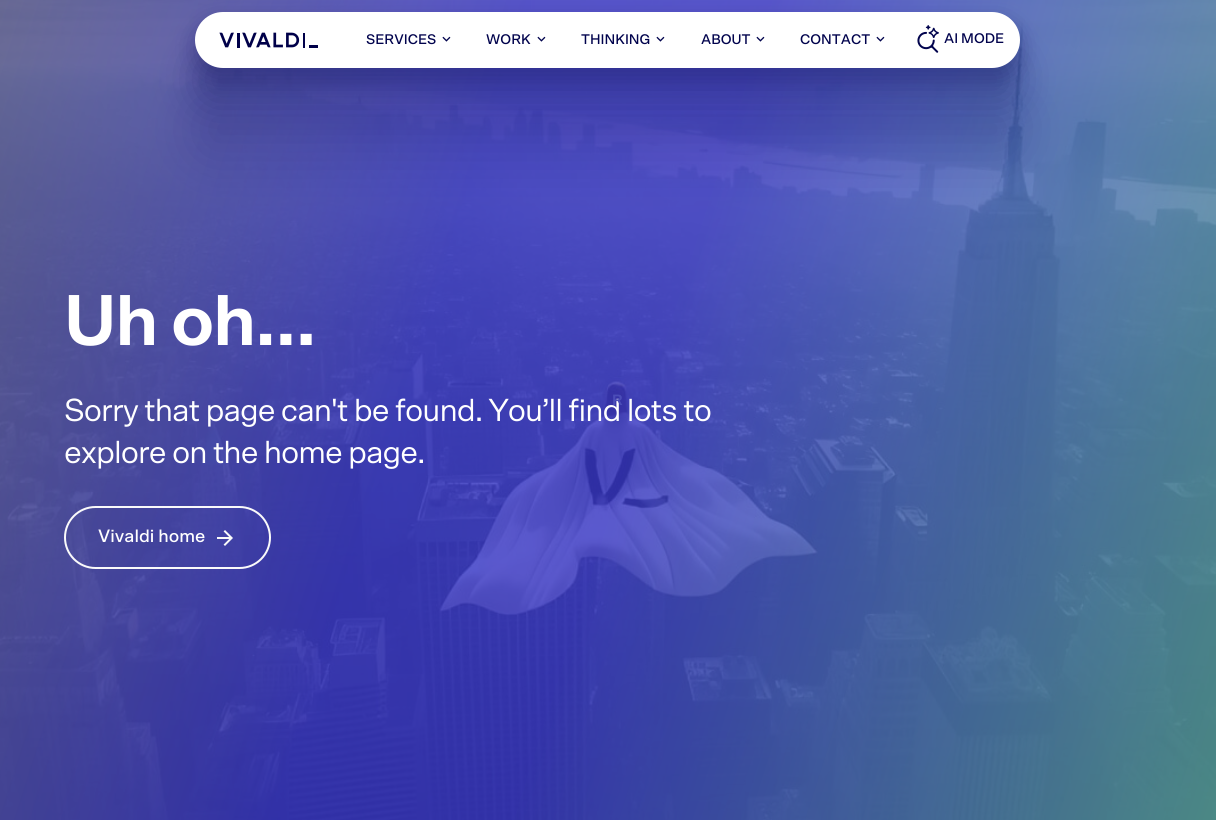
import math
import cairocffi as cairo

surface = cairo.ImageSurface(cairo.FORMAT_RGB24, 1216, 820)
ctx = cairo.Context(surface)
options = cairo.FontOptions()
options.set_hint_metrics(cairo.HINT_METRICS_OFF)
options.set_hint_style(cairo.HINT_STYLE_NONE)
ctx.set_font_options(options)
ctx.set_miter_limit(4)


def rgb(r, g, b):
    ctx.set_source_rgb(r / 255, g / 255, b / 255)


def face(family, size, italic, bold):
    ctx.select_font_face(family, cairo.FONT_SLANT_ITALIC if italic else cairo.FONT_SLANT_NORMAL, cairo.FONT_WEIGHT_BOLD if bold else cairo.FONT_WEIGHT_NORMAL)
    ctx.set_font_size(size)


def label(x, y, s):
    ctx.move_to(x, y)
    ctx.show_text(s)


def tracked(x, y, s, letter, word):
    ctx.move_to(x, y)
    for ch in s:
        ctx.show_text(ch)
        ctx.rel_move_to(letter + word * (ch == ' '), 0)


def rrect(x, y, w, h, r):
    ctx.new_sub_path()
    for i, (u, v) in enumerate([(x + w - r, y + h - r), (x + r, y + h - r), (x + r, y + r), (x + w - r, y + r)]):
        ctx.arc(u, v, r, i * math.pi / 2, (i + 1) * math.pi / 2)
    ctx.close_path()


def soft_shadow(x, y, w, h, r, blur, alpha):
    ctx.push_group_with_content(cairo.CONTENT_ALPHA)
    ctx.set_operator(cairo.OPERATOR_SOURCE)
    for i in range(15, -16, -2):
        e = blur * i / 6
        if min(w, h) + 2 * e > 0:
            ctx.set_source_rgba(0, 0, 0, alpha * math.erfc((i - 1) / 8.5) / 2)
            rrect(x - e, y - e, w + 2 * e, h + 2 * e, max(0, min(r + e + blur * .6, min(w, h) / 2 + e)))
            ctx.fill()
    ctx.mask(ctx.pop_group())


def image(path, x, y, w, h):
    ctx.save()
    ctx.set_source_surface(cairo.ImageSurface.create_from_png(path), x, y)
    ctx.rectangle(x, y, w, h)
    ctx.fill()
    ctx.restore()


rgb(255, 255, 255)
ctx.paint()
image('image3.png', 0, 0, 1216, 820)
rgb(2, 3, 77)
soft_shadow(195, 22, 825, 56, 28, 11, 0.31)
soft_shadow(195, 51, 825, 56, 28, 19.5, 0.27)
soft_shadow(195, 101, 825, 56, 28, 26.5, 0.16)
rgb(255, 255, 255)
rrect(195, 12, 825, 56, 28)
ctx.fill()
image('image0.png', 219, 32, 99, 16)
face('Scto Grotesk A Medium', 14, 0, 0)
rgb(1, 3, 77)
label(366, 44, 'SERVICES')
image('image1.png', 442, 36, 9, 6)
label(486, 44, 'WORK')
image('image1.png', 537, 36, 9, 6)
label(581, 44, 'THINKING')
image('image1.png', 656, 36, 9, 6)
face('Scto Grotesk A', 32, 0, 0)
rgb(255, 255, 255)
tracked(64, 421, 'Sorry that page can\'t be found. You’ll find lots to', -1, 0)
face('Scto Grotesk A', 15, 0, 1)
rgb(75, 77, 184)
label(612, 405, 'R')
face('Scto Grotesk A Medium', 14, 0, 0)
rgb(1, 3, 77)
label(701, 44, 'ABOUT')
image('image1.png', 756, 36, 9, 6)
label(800, 44, 'CONTACT')
image('image1.png', 876, 36, 9, 6)
image('image2.png', 917, 25, 22, 28)
label(944, 43, 'AI MODE')
face('Scto Grotesk A', 72, 0, 1)
rgb(255, 255, 255)
tracked(64, 345, 'Uh oh...', -1, 0)
face('Scto Grotesk A', 32, 0, 0)
tracked(64, 463, 'explore on the home page.', -1, 0)
rrect(65, 507, 205, 61, 30.5)
rgb(250, 250, 250)
ctx.stroke()
face('Scto Grotesk A Medium', 18, 0, 0)
rgb(255, 255, 255)
label(98, 542, 'Vivaldi home')
image('image4.png', 217, 530, 16, 16)
surface.write_to_png('render.png')
